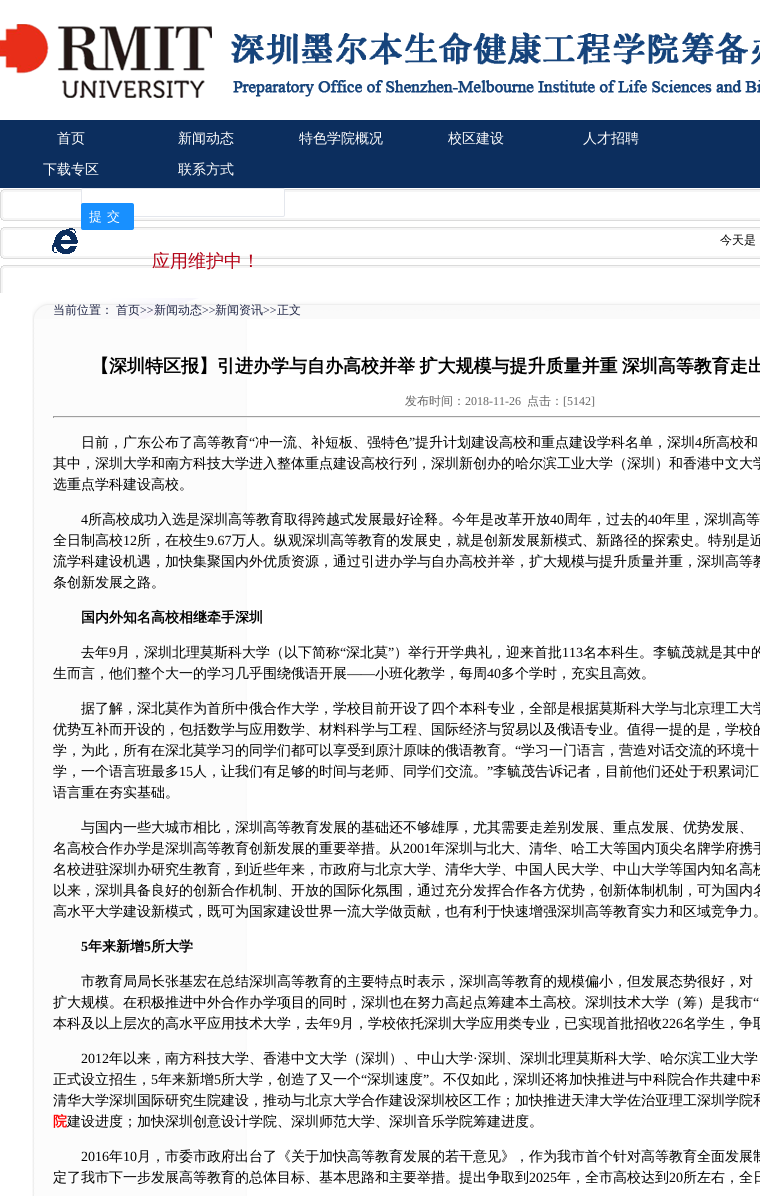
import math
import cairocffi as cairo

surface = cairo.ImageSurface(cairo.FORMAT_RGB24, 760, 1196)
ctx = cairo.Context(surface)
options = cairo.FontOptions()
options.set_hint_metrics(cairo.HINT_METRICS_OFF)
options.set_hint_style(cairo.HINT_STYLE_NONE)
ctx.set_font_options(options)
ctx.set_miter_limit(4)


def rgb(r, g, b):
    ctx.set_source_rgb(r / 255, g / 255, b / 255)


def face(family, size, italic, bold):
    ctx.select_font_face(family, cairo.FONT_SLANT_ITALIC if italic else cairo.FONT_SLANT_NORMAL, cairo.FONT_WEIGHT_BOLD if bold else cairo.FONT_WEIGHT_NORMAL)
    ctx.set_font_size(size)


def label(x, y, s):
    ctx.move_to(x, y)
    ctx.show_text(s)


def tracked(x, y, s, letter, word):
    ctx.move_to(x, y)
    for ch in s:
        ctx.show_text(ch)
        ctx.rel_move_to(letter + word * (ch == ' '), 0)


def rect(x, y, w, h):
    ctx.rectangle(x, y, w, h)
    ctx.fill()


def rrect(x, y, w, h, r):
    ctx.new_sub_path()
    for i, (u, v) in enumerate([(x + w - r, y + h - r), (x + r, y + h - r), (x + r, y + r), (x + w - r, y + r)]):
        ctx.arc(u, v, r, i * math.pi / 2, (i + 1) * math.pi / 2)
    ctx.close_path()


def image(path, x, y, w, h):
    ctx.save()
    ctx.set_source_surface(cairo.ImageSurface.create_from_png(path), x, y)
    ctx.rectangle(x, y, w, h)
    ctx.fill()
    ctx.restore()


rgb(255, 255, 255)
ctx.paint()
image('image0.png', 0, 24, 760, 74)
rgb(12, 46, 94)
rect(0, 120, 760, 68)
face('WenQuanYi Zen Hei Medium', 14, 0, 0)
rgb(255, 255, 255)
label(57, 143, '首页')
label(178, 143, '新闻动态')
label(299, 143, '特色学院概况')
label(448, 143, '校区建设')
label(583, 143, '人才招聘')
label(43, 174, '下载专区')
label(178, 174, '联系方式')
image('image1.png', 0, 189, 760, 104)
image('image2.png', 52, 228, 26, 26)
rrect(81.5, 188.5, 203, 28, 1.5)
ctx.fill_preserve()
rgb(228, 231, 237)
ctx.set_line_width(1)
ctx.stroke()
rgb(24, 144, 255)
rrect(81, 203, 53, 27, 2)
ctx.fill()
face('WenQuanYi Zen Hei Medium', 13, 0, 0)
rgb(255, 255, 255)
tracked(89, 221, '提交', 5, 0)
face('WenQuanYi Zen Hei Medium', 18, 0, 0)
rgb(179, 2, 22)
label(152, 267, '应用维护中！')
face('WenQuanYi Zen Hei Medium', 12, 0, 0)
rgb(0, 0, 0)
label(720, 244, '今天是')
image('image3.png', 32, 298, 728, 21)
rgb(31, 37, 69)
label(53, 314, '当前位置：')
label(116, 314, '首页')
face('Liberation Serif', 12, 0, 0)
label(140, 314, '>>')
face('WenQuanYi Zen Hei Medium', 12, 0, 0)
label(154, 314, '新闻动态')
face('Liberation Serif', 12, 0, 0)
label(202, 314, '>>')
face('WenQuanYi Zen Hei Medium', 12, 0, 0)
label(215, 314, '新闻资讯')
face('Liberation Serif', 12, 0, 0)
label(263, 314, '>>')
face('WenQuanYi Zen Hei Medium', 12, 0, 0)
label(277, 314, '正文')
image('image4.png', 32, 319, 215, 877)
face('WenQuanYi Zen Hei', 18, 0, 1)
rgb(0, 0, 0)
tracked(91, 372, '【深圳特区报】引进办学与自办高校并举 扩大规模与提升质量并重 深圳高等教育走出', 0, -1)
face('WenQuanYi Zen Hei Medium', 12, 0, 0)
rgb(102, 102, 102)
label(405, 405, '发布时间：')
face('Liberation Serif', 12, 0, 0)
label(465, 405, '2018-11-26')
face('WenQuanYi Zen Hei Medium', 12, 0, 0)
label(527, 405, '点击：')
face('Liberation Serif', 12, 0, 0)
label(563, 405, '[5142]')
rgb(159, 159, 159)
rect(53, 416, 707, 1)
rgb(238, 238, 238)
rect(53, 417, 707, 1)
rgb(159, 159, 159)
rect(53, 416, 1, 2)
face('WenQuanYi Zen Hei Medium', 14, 0, 0)
rgb(0, 0, 0)
label(81, 447, '日前，广东公布了高等教育')
face('Liberation Serif', 14, 0, 0)
label(249, 447, '“')
face('WenQuanYi Zen Hei Medium', 14, 0, 0)
label(255, 447, '冲一流、补短板、强特色')
face('Liberation Serif', 14, 0, 0)
label(409, 447, '”')
face('WenQuanYi Zen Hei Medium', 14, 0, 0)
label(415, 447, '提升计划建设高校和重点建设学科名单，深圳')
face('Liberation Serif', 14, 0, 0)
label(695, 447, '4')
face('WenQuanYi Zen Hei Medium', 14, 0, 0)
label(702, 447, '所高校和')
label(53, 468, '其中，深圳大学和南方科技大学进入整体重点建设高校行列，深圳新创办的哈尔滨工业大学（深圳）和香港中文大学')
label(53, 489, '选重点学科建设高校。')
face('Liberation Serif', 14, 0, 0)
label(81, 524, '4')
face('WenQuanYi Zen Hei Medium', 14, 0, 0)
label(88, 524, '所高校成功入选是深圳高等教育取得跨越式发展最好诠释。今年是改革开放')
face('Liberation Serif', 14, 0, 0)
label(550, 524, '40')
face('WenQuanYi Zen Hei Medium', 14, 0, 0)
label(564, 524, '周年，过去的')
face('Liberation Serif', 14, 0, 0)
label(648, 524, '40')
face('WenQuanYi Zen Hei Medium', 14, 0, 0)
label(662, 524, '年里，深圳高等')
label(53, 545, '全日制高校')
face('Liberation Serif', 14, 0, 0)
label(123, 545, '12')
face('WenQuanYi Zen Hei Medium', 14, 0, 0)
label(137, 545, '所，在校生')
face('Liberation Serif', 14, 0, 0)
label(207, 545, '9.67')
face('WenQuanYi Zen Hei Medium', 14, 0, 0)
label(232, 545, '万人。纵观深圳高等教育的发展史，就是创新发展新模式、新路径的探索史。特别是近')
label(53, 566, '流学科建设机遇，加快集聚国内外优质资源，通过引进办学与自办高校并举，扩大规模与提升质量并重，深圳高等教')
label(53, 587, '条创新发展之路。')
face('WenQuanYi Zen Hei', 14, 0, 1)
label(81, 622, '国内外知名高校相继牵手深圳')
face('WenQuanYi Zen Hei Medium', 14, 0, 0)
label(81, 657, '去年')
face('Liberation Serif', 14, 0, 0)
label(109, 657, '9')
face('WenQuanYi Zen Hei Medium', 14, 0, 0)
label(116, 657, '月，深圳北理莫斯科大学（以下简称')
face('Liberation Serif', 14, 0, 0)
label(340, 657, '“')
face('WenQuanYi Zen Hei Medium', 14, 0, 0)
label(346, 657, '深北莫')
face('Liberation Serif', 14, 0, 0)
label(388, 657, '”')
face('WenQuanYi Zen Hei Medium', 14, 0, 0)
label(394, 657, '）举行开学典礼，迎来首批')
face('Liberation Serif', 14, 0, 0)
label(562, 657, '113')
face('WenQuanYi Zen Hei Medium', 14, 0, 0)
label(583, 657, '名本科生。李毓茂就是其中的')
label(53, 678, '生而言，他们整个大一的学习几乎围绕俄语开展')
face('Liberation Serif', 14, 0, 0)
label(347, 678, '——')
face('WenQuanYi Zen Hei Medium', 14, 0, 0)
label(375, 678, '小班化教学，每周')
face('Liberation Serif', 14, 0, 0)
label(487, 678, '40')
face('WenQuanYi Zen Hei Medium', 14, 0, 0)
label(501, 678, '多个学时，充实且高效。')
label(81, 713, '据了解，深北莫作为首所中俄合作大学，学校目前开设了四个本科专业，全部是根据莫斯科大学与北京理工大学')
label(53, 734, '优势互补而开设的，包括数学与应用数学、材料科学与工程、国际经济与贸易以及俄语专业。值得一提的是，学校的')
label(53, 755, '学，为此，所有在深北莫学习的同学们都可以享受到原汁原味的俄语教育。')
face('Liberation Serif', 14, 0, 0)
label(515, 755, '“')
face('WenQuanYi Zen Hei Medium', 14, 0, 0)
label(521, 755, '学习一门语言，营造对话交流的环境十')
label(53, 776, '学，一个语言班最多')
face('Liberation Serif', 14, 0, 0)
label(179, 776, '15')
face('WenQuanYi Zen Hei Medium', 14, 0, 0)
label(193, 776, '人，让我们有足够的时间与老师、同学们交流。')
face('Liberation Serif', 14, 0, 0)
label(487, 776, '”')
face('WenQuanYi Zen Hei Medium', 14, 0, 0)
label(493, 776, '李毓茂告诉记者，目前他们还处于积累词汇')
label(53, 797, '语言重在夯实基础。')
label(81, 832, '与国内一些大城市相比，深圳高等教育发展的基础还不够雄厚，尤其需要走差别发展、重点发展、优势发展、')
label(53, 853, '名高校合作办学是深圳高等教育创新发展的重要举措。从')
face('Liberation Serif', 14, 0, 0)
label(403, 853, '2001')
face('WenQuanYi Zen Hei Medium', 14, 0, 0)
label(431, 853, '年深圳与北大、清华、哈工大等国内顶尖名牌学府携手')
label(53, 874, '名校进驻深圳办研究生教育，到近些年来，市政府与北京大学、清华大学、中国人民大学、中山大学等国内知名高校')
label(53, 895, '以来，深圳具备良好的创新合作机制、开放的国际化氛围，通过充分发挥合作各方优势，创新体制机制，可为国内名')
label(53, 916, '高水平大学建设新模式，既可为国家建设世界一流大学做贡献，也有利于快速增强深圳高等教育实力和区域竞争力。')
face('Liberation Serif', 14, 0, 1)
label(81, 951, '5')
face('WenQuanYi Zen Hei', 14, 0, 1)
label(88, 951, '年来新增')
face('Liberation Serif', 14, 0, 1)
label(144, 951, '5')
face('WenQuanYi Zen Hei', 14, 0, 1)
label(151, 951, '所大学')
face('WenQuanYi Zen Hei Medium', 14, 0, 0)
label(81, 986, '市教育局局长张基宏在总结深圳高等教育的主要特点时表示，深圳高等教育的规模偏小，但发展态势很好，对')
label(53, 1007, '扩大规模。在积极推进中外合作办学项目的同时，深圳也在努力高起点筹建本土高校。深圳技术大学（筹）是我市')
face('Liberation Serif', 14, 0, 0)
label(753, 1007, '“')
face('WenQuanYi Zen Hei Medium', 14, 0, 0)
label(53, 1028, '本科及以上层次的高水平应用技术大学，去年')
face('Liberation Serif', 14, 0, 0)
label(333, 1028, '9')
face('WenQuanYi Zen Hei Medium', 14, 0, 0)
label(340, 1028, '月，学校依托深圳大学应用类专业，已实现首批招收')
face('Liberation Serif', 14, 0, 0)
label(662, 1028, '226')
face('WenQuanYi Zen Hei Medium', 14, 0, 0)
label(683, 1028, '名学生，争取')
face('Liberation Serif', 14, 0, 0)
label(81, 1063, '2012')
face('WenQuanYi Zen Hei Medium', 14, 0, 0)
label(109, 1063, '年以来，南方科技大学、香港中文大学（深圳）、中山大学')
face('Liberation Serif', 14, 0, 0)
label(473, 1063, '·')
face('WenQuanYi Zen Hei Medium', 14, 0, 0)
label(478, 1063, '深圳、深圳北理莫斯科大学、哈尔滨工业大学')
label(53, 1084, '正式设立招生，')
face('Liberation Serif', 14, 0, 0)
label(151, 1084, '5')
face('WenQuanYi Zen Hei Medium', 14, 0, 0)
label(158, 1084, '年来新增')
face('Liberation Serif', 14, 0, 0)
label(214, 1084, '5')
face('WenQuanYi Zen Hei Medium', 14, 0, 0)
label(221, 1084, '所大学，创造了又一个')
face('Liberation Serif', 14, 0, 0)
label(361, 1084, '“')
face('WenQuanYi Zen Hei Medium', 14, 0, 0)
label(367, 1084, '深圳速度')
face('Liberation Serif', 14, 0, 0)
label(423, 1084, '”')
face('WenQuanYi Zen Hei Medium', 14, 0, 0)
label(429, 1084, '。不仅如此，深圳还将加快推进与中科院合作共建中科')
label(53, 1105, '清华大学深圳国际研究生院建设，推动与北京大学合作建设深圳校区工作；加快推进天津大学佐治亚理工深圳学院和')
face('WenQuanYi Zen Hei', 14, 0, 1)
rgb(255, 0, 0)
label(53, 1126, '院')
face('WenQuanYi Zen Hei Medium', 14, 0, 0)
rgb(0, 0, 0)
label(67, 1126, '建设进度；加快深圳创意设计学院、深圳师范大学、深圳音乐学院筹建进度。')
face('Liberation Serif', 14, 0, 0)
label(81, 1161, '2016')
face('WenQuanYi Zen Hei Medium', 14, 0, 0)
label(109, 1161, '年')
face('Liberation Serif', 14, 0, 0)
label(123, 1161, '10')
face('WenQuanYi Zen Hei Medium', 14, 0, 0)
label(137, 1161, '月，市委市政府出台了《关于加快高等教育发展的若干意见》，作为我市首个针对高等教育全面发展制')
label(53, 1182, '定了我市下一步发展高等教育的总体目标、基本思路和主要举措。提出争取到')
face('Liberation Serif', 14, 0, 0)
label(529, 1182, '2025')
face('WenQuanYi Zen Hei Medium', 14, 0, 0)
label(557, 1182, '年，全市高校达到')
face('Liberation Serif', 14, 0, 0)
label(669, 1182, '20')
face('WenQuanYi Zen Hei Medium', 14, 0, 0)
label(683, 1182, '所左右，全日')
surface.write_to_png('render.png')
